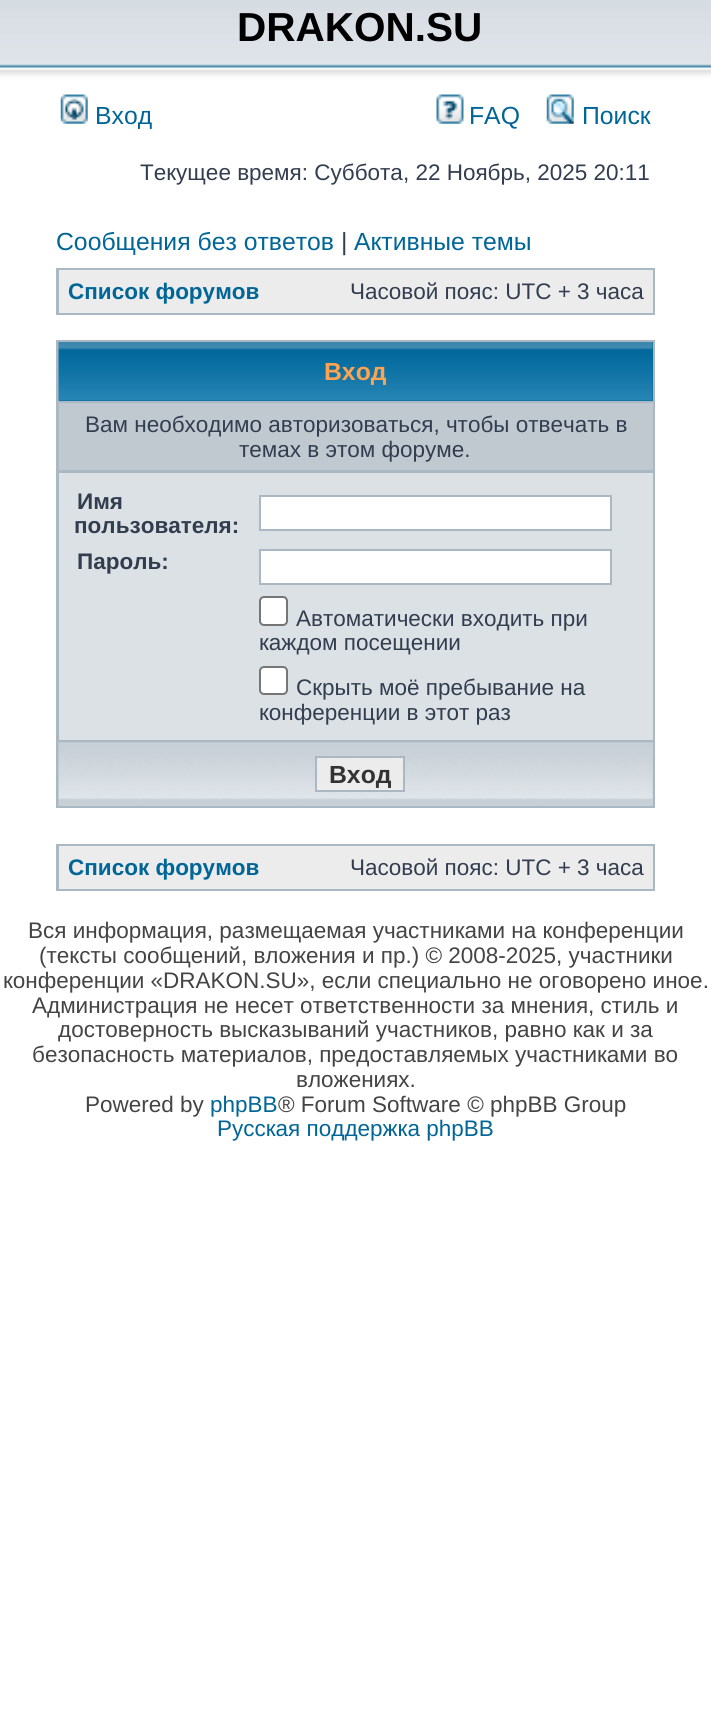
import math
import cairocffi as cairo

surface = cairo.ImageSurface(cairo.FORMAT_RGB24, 711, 1719)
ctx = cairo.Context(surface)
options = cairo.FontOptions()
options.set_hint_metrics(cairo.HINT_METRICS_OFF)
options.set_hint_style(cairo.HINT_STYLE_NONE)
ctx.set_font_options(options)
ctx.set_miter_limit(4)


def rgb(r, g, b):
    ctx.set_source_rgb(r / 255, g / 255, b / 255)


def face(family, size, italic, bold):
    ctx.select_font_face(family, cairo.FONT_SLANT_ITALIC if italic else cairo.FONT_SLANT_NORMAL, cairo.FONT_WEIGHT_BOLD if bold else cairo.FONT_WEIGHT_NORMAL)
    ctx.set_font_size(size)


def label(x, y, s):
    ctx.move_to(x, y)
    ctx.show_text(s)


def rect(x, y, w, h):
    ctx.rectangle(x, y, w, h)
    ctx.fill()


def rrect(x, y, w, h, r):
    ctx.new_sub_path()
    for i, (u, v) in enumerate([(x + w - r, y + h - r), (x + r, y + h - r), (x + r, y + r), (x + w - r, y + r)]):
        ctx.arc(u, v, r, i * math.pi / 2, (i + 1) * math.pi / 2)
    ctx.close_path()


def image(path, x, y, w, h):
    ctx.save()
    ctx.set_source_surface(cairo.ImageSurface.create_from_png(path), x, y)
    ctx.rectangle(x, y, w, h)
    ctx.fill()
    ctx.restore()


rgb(255, 255, 255)
ctx.paint()
image('image0.png', 0, 0, 711, 90)
face('Liberation Sans', 40.5, 0, 1)
rgb(0, 0, 0)
label(237, 41, 'DRAKON.SU')
image('image1.png', 60, 94, 28, 30)
face('Liberation Sans', 24.75, 0, 0)
rgb(0, 101, 151)
label(95, 124, 'Вход')
image('image2.png', 436, 94, 28, 30)
label(469, 124, 'FAQ')
image('image3.png', 546, 94, 28, 30)
label(582, 124, 'Поиск')
face('Liberation Sans', 22.5, 0, 0)
rgb(50, 61, 79)
label(140, 180, 'Текущее время: Суббота, 22 Ноябрь, 2025 20:11')
face('Liberation Sans', 24.75, 0, 0)
rgb(0, 101, 151)
label(56, 250, 'Сообщения без ответов')
rgb(50, 61, 79)
label(341, 250, '|')
rgb(0, 101, 151)
label(354, 250, 'Активные темы')
rgb(169, 184, 194)
rect(56, 268, 599, 47)
rgb(236, 236, 236)
rect(59, 270, 594, 43)
face('Liberation Sans', 22.5, 0, 1)
rgb(0, 101, 151)
label(68, 299, 'Список форумов')
face('Liberation Sans', 22.5, 0, 0)
rgb(50, 61, 79)
label(350, 299, 'Часовой пояс: UTC + 3 часа')
rgb(169, 184, 194)
rect(56, 340, 599, 468)
rgb(0, 102, 153)
rect(59, 342, 594, 59)
image('image4.png', 58, 342, 595, 59)
face('Liberation Sans', 24.75, 0, 1)
rgb(255, 163, 79)
label(324, 380, 'Вход')
rgb(192, 200, 208)
rect(59, 403, 594, 67)
face('Liberation Sans', 22.5, 0, 0)
rgb(50, 61, 79)
label(85, 432, 'Вам необходимо авторизоваться, чтобы отвечать в')
label(239, 457, 'темах в этом форуме.')
rgb(220, 225, 229)
rect(59, 473, 594, 267)
face('Liberation Sans', 22.5, 0, 1)
rgb(50, 61, 79)
label(77, 509, 'Имя')
label(74, 533, 'пользователя:')
rgb(255, 255, 255)
ctx.rectangle(260, 496, 351, 34)
ctx.fill_preserve()
rgb(169, 184, 194)
ctx.stroke()
rgb(50, 61, 79)
label(77, 569, 'Пароль:')
rgb(255, 255, 255)
ctx.rectangle(260, 550, 351, 34)
ctx.fill_preserve()
rgb(169, 184, 194)
ctx.stroke()
rgb(255, 255, 255)
rrect(260, 597, 27, 28, 4)
ctx.fill_preserve()
rgb(118, 118, 118)
ctx.stroke()
face('Liberation Sans', 22.5, 0, 0)
rgb(50, 61, 79)
label(296, 626, 'Автоматически входить при')
label(259, 650, 'каждом посещении')
rgb(255, 255, 255)
rrect(260, 667, 27, 27, 4)
ctx.fill_preserve()
rgb(118, 118, 118)
ctx.stroke()
rgb(50, 61, 79)
label(296, 695, 'Скрыть моё пребывание на')
label(259, 720, 'конференции в этот раз')
rgb(199, 208, 215)
rect(59, 743, 594, 63)
image('image5.png', 58, 742, 595, 64)
rgb(236, 236, 236)
ctx.rectangle(316, 757, 88, 34)
ctx.fill_preserve()
rgb(169, 184, 194)
ctx.stroke()
face('Liberation Sans', 24.75, 0, 1)
rgb(51, 51, 51)
label(329, 783, 'Вход')
rgb(169, 184, 194)
rect(56, 844, 599, 47)
rgb(236, 236, 236)
rect(59, 846, 594, 43)
face('Liberation Sans', 22.5, 0, 1)
rgb(0, 101, 151)
label(68, 875, 'Список форумов')
face('Liberation Sans', 22.5, 0, 0)
rgb(50, 61, 79)
label(350, 875, 'Часовой пояс: UTC + 3 часа')
rgb(68, 68, 68)
label(28, 938, 'Вся информация, размещаемая участниками на конференции')
label(39, 963, '(тексты сообщений, вложения и пр.) © 2008-2025, участники')
label(3, 988, 'конференции «DRAKON.SU», если специально не оговорено иное.')
label(32, 1013, 'Администрация не несет ответственности за мнения, стиль и')
label(58, 1037, 'достоверность высказываний участников, равно как и за')
label(32, 1062, 'безопасность материалов, предоставляемых участниками во')
label(296, 1087, 'вложениях.')
label(85, 1112, 'Powered by')
rgb(0, 101, 151)
label(210, 1112, 'phpBB')
rgb(68, 68, 68)
label(278, 1112, '® Forum Software © phpBB Group')
rgb(0, 101, 151)
label(217, 1136, 'Русская поддержка phpBB')
surface.write_to_png('render.png')
